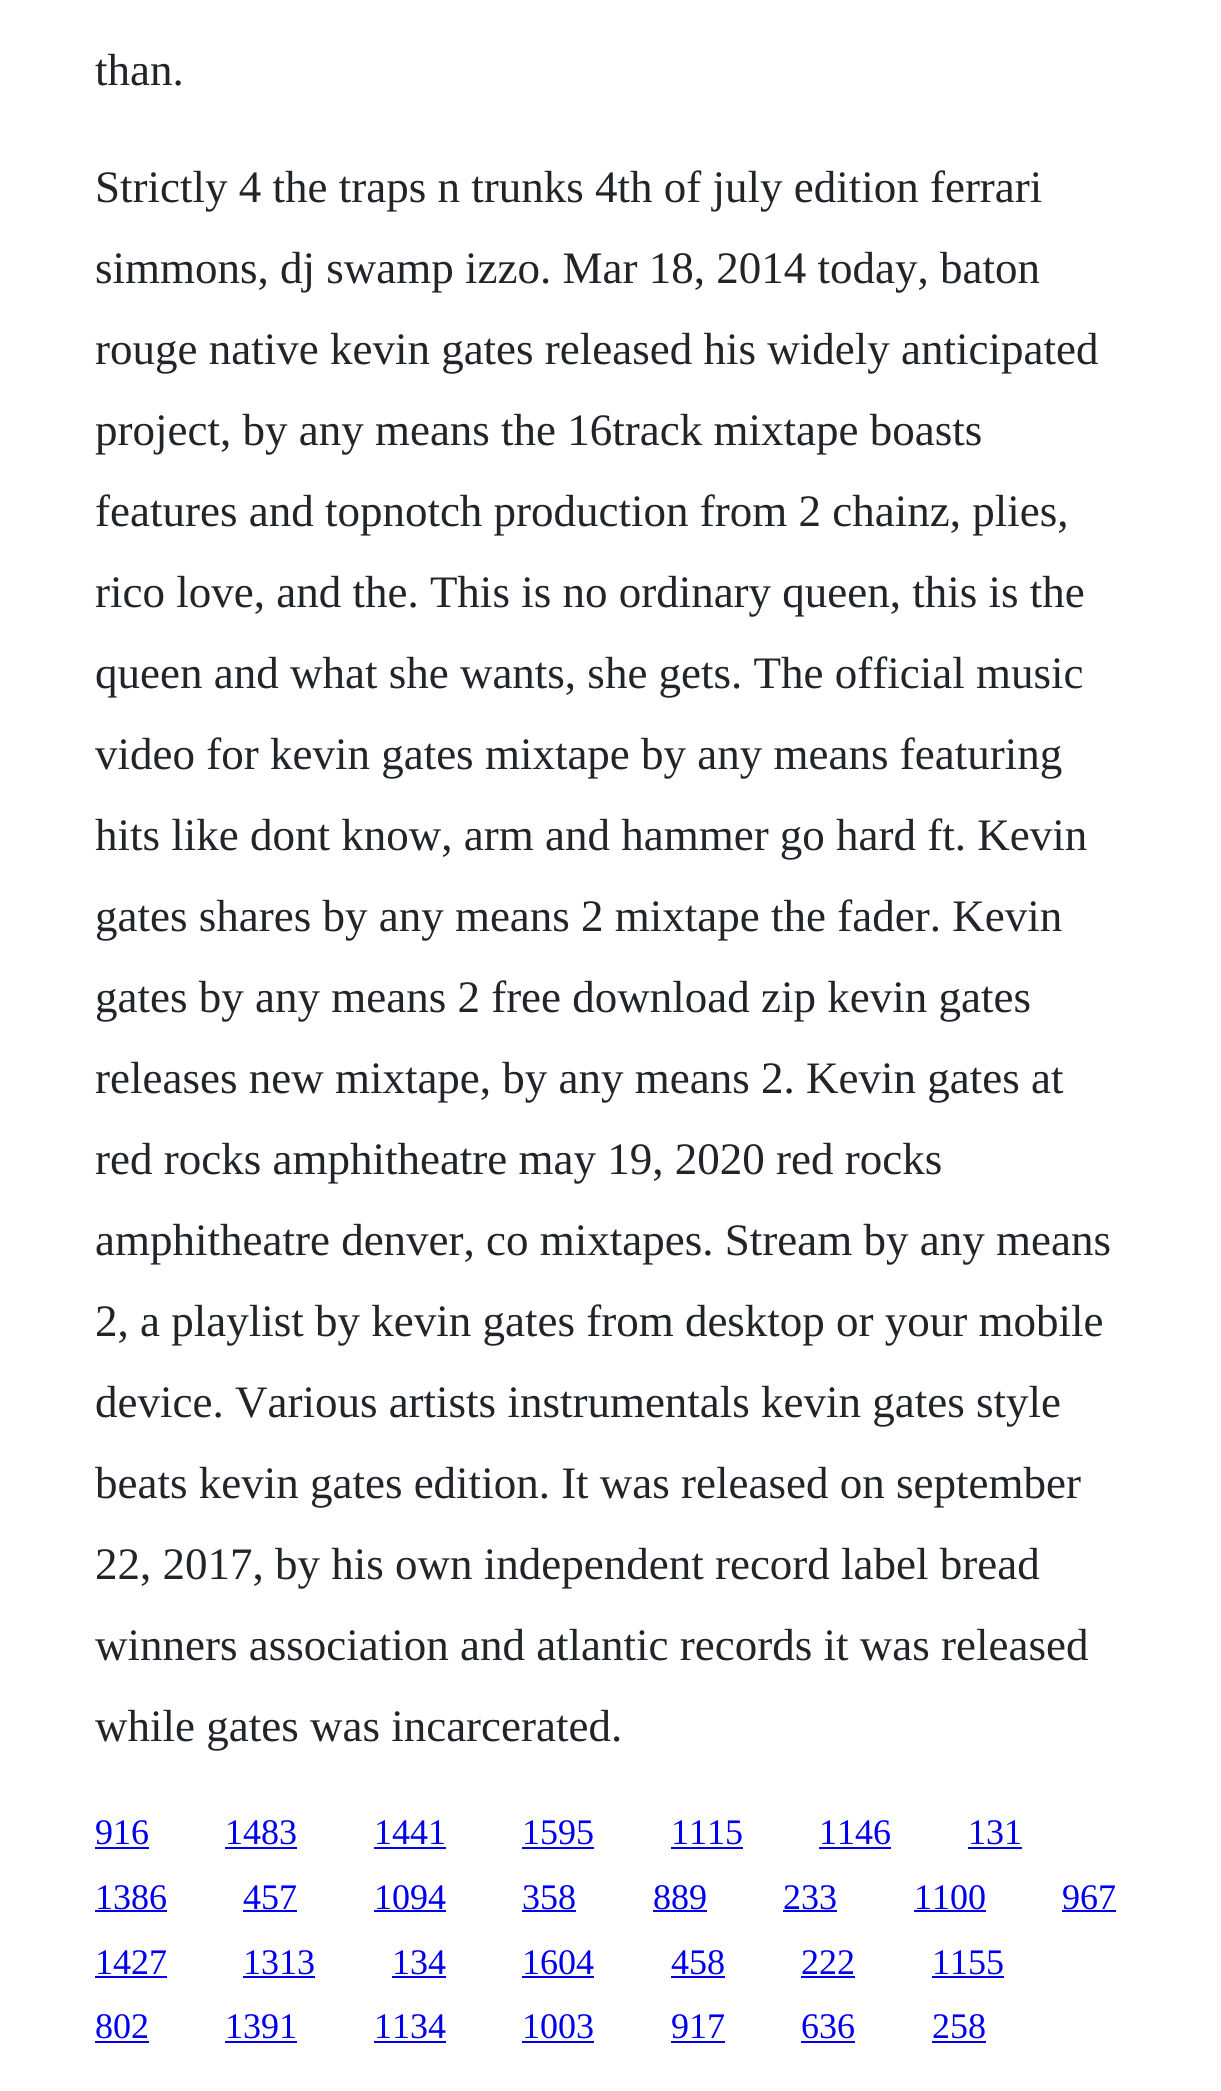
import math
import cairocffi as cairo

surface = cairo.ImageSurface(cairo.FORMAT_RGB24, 1221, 2091)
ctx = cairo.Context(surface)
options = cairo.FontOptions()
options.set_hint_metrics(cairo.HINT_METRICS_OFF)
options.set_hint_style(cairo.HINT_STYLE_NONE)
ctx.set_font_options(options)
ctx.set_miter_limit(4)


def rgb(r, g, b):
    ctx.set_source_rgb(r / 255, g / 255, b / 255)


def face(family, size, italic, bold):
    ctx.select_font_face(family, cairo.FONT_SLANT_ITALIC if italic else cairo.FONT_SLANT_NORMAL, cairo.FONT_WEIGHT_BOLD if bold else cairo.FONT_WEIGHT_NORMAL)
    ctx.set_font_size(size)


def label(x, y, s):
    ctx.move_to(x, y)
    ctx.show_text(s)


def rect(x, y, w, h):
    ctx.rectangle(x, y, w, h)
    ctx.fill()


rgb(255, 255, 255)
ctx.paint()
face('Liberation Serif', 45, 0, 0)
rgb(33, 37, 41)
label(95, 85, 'than.')
label(95, 202, 'Strictly 4 the traps n trunks 4th of july edition ferrari')
label(95, 283, 'simmons, dj swamp izzo. Mar 18, 2014 today, baton')
label(95, 364, 'rouge native kevin gates released his widely anticipated')
label(95, 445, 'project, by any means the 16track mixtape boasts')
label(95, 526, 'features and topnotch production from 2 chainz, plies,')
label(95, 607, 'rico love, and the. This is no ordinary queen, this is the')
label(95, 688, 'queen and what she wants, she gets. The official music')
label(95, 769, 'video for kevin gates mixtape by any means featuring')
label(95, 850, 'hits like dont know, arm and hammer go hard ft. Kevin')
label(95, 931, 'gates shares by any means 2 mixtape the fader. Kevin')
label(95, 1012, 'gates by any means 2 free download zip kevin gates')
label(95, 1093, 'releases new mixtape, by any means 2. Kevin gates at')
label(95, 1174, 'red rocks amphitheatre may 19, 2020 red rocks')
label(95, 1255, 'amphitheatre denver, co mixtapes. Stream by any means')
label(95, 1336, '2, a playlist by kevin gates from desktop or your mobile')
label(95, 1417, 'device. Various artists instrumentals kevin gates style')
label(95, 1498, 'beats kevin gates edition. It was released on september')
label(95, 1579, '22, 2017, by his own independent record label bread')
label(95, 1660, 'winners association and atlantic records it was released')
label(95, 1741, 'while gates was incarcerated.')
face('Liberation Serif', 36, 0, 0)
rgb(0, 0, 238)
label(95, 1844, '916')
rect(95, 1847, 54, 2)
label(225, 1844, '1483')
rect(225, 1847, 72, 2)
label(374, 1844, '1441')
rect(374, 1847, 72, 2)
label(522, 1844, '1595')
rect(522, 1847, 72, 2)
label(671, 1844, '1115')
rect(671, 1847, 72, 2)
label(819, 1844, '1146')
rect(819, 1847, 72, 2)
label(968, 1844, '131')
rect(968, 1847, 54, 2)
label(95, 1909, '1386')
rect(95, 1910, 72, 2)
label(243, 1909, '457')
rect(243, 1910, 54, 2)
label(374, 1909, '1094')
rect(374, 1910, 72, 2)
label(522, 1909, '358')
rect(522, 1910, 54, 2)
label(653, 1909, '889')
rect(653, 1910, 54, 2)
label(783, 1909, '233')
rect(783, 1910, 54, 2)
label(914, 1909, '1100')
rect(914, 1910, 72, 2)
label(1062, 1909, '967')
rect(1062, 1910, 54, 2)
label(95, 1974, '1427')
rect(95, 1976, 72, 2)
label(243, 1974, '1313')
rect(243, 1976, 72, 2)
label(392, 1974, '134')
rect(392, 1976, 54, 2)
label(522, 1974, '1604')
rect(522, 1976, 72, 2)
label(671, 1974, '458')
rect(671, 1976, 54, 2)
label(801, 1974, '222')
rect(801, 1976, 54, 2)
label(932, 1974, '1155')
rect(932, 1976, 72, 2)
label(95, 2038, '802')
rect(95, 2041, 54, 2)
label(225, 2038, '1391')
rect(225, 2041, 72, 2)
label(374, 2038, '1134')
rect(374, 2041, 72, 2)
label(522, 2038, '1003')
rect(522, 2041, 72, 2)
label(671, 2038, '917')
rect(671, 2041, 54, 2)
label(801, 2038, '636')
rect(801, 2041, 54, 2)
label(932, 2038, '258')
rect(932, 2041, 54, 2)
surface.write_to_png('render.png')
